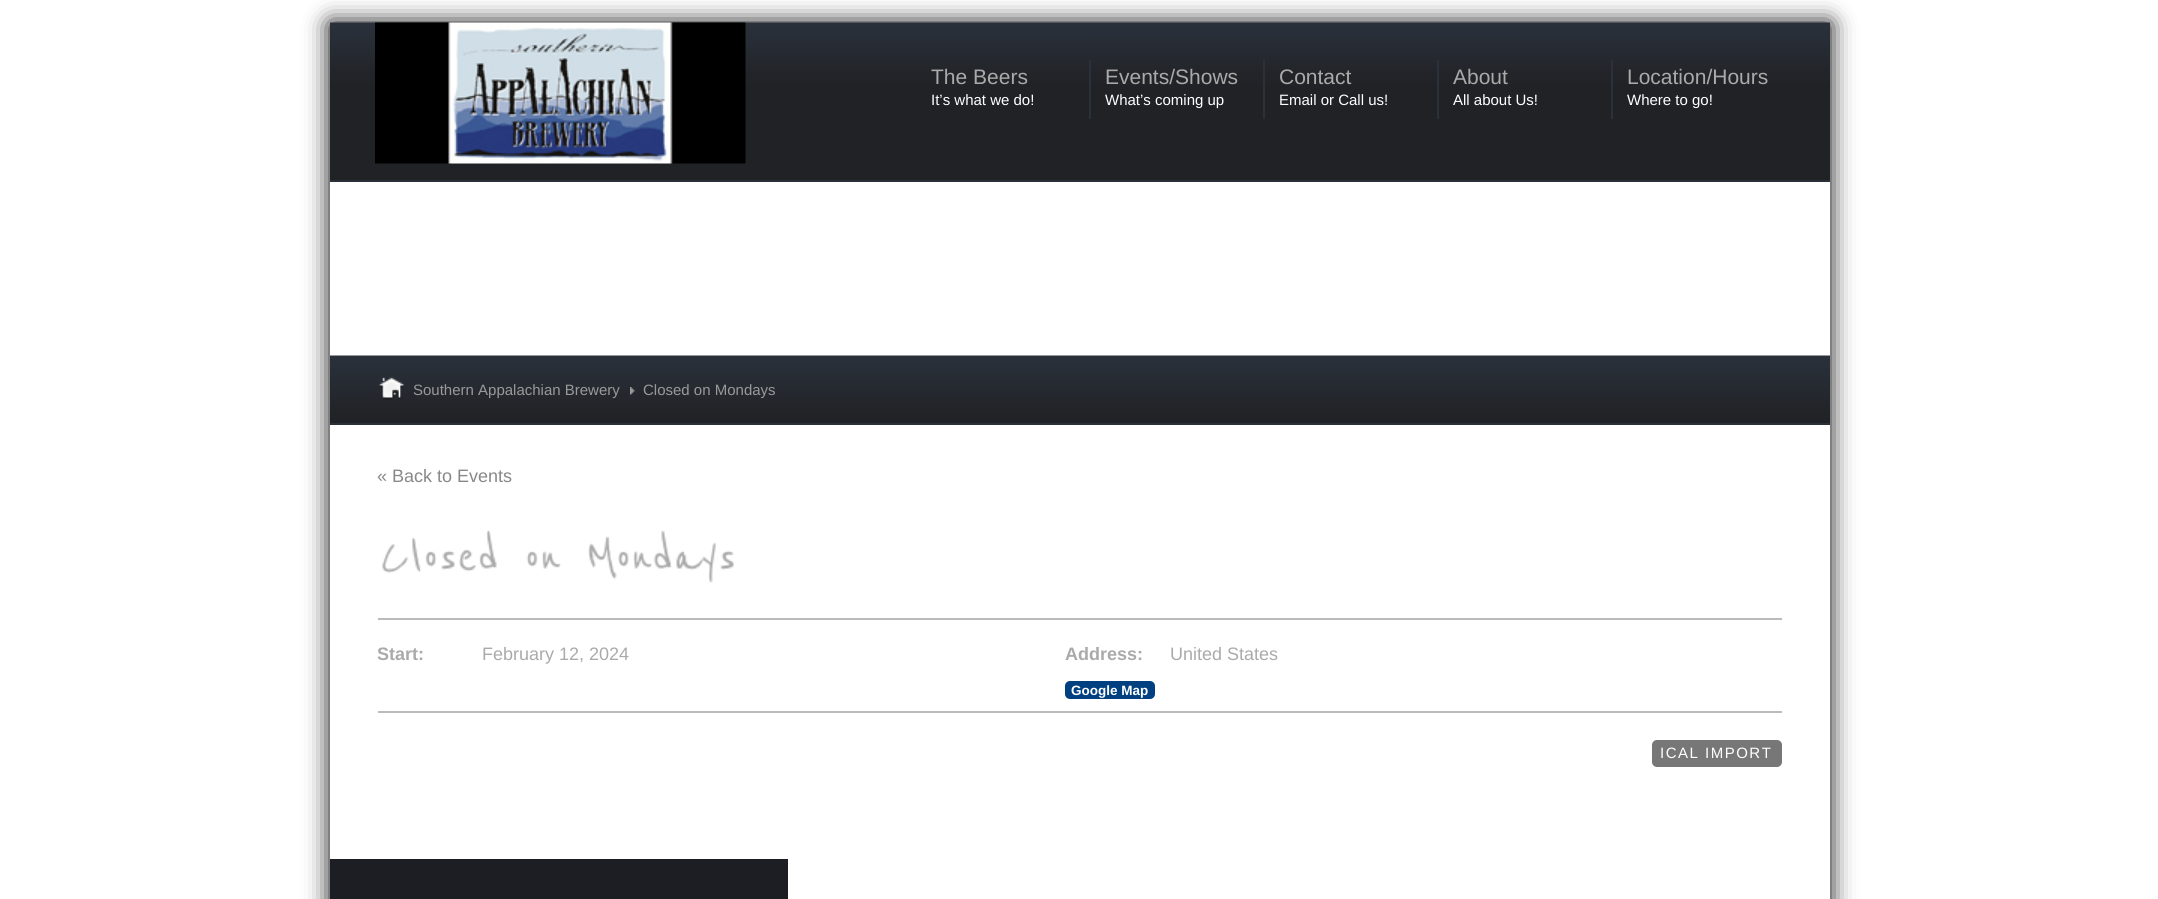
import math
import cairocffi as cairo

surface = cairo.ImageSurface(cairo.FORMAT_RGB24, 2158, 899)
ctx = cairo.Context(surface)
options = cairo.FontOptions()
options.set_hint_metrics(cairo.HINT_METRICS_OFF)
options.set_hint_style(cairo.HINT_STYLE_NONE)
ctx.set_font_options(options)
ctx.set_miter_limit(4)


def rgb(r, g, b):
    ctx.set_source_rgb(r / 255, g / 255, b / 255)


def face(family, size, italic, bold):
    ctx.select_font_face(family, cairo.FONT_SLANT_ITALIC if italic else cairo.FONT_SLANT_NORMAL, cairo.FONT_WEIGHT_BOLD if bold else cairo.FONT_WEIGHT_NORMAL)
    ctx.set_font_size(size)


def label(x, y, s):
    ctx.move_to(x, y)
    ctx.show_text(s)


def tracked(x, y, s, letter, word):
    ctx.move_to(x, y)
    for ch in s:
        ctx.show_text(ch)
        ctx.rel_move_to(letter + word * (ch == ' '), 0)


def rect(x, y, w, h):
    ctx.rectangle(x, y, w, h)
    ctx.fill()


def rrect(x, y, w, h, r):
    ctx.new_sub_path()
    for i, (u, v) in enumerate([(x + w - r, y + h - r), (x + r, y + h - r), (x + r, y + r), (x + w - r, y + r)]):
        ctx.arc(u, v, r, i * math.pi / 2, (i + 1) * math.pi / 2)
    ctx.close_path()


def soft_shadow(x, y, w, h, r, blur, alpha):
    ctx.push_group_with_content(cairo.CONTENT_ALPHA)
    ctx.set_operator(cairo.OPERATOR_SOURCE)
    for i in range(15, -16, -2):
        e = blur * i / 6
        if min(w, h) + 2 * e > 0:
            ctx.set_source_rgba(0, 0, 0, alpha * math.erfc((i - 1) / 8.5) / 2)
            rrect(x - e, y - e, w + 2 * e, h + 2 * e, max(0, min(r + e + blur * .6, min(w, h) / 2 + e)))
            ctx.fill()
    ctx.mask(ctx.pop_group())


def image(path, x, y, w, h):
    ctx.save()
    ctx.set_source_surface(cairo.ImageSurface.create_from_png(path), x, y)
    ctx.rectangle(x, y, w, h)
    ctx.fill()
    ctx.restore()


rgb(255, 255, 255)
ctx.paint()
ctx.save()
ctx.set_fill_rule(cairo.FILL_RULE_EVEN_ODD)
ctx.new_path()
ctx.move_to(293, 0)
ctx.line_to(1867, 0)
ctx.line_to(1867, 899)
ctx.line_to(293, 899)
ctx.close_path()
ctx.move_to(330, 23)
ctx.line_to(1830, 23)
ctx.line_to(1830, 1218)
ctx.line_to(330, 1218)
ctx.close_path()
ctx.clip()
rgb(0, 0, 0)
soft_shadow(330, 23, 1500, 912, 0, 12, 1)
ctx.restore()
image('image0.png', 330, 22, 1500, 158)
rgb(42, 49, 59)
rect(330, 180, 1500, 2)
image('image1.png', 375, 22, 371, 142)
face('Liberation Sans', 21, 0, 0)
rgb(170, 170, 170)
label(931, 84, 'The Beers')
face('Liberation Sans', 15, 0, 0)
rgb(255, 255, 255)
label(931, 105, 'It’s what we do!')
rgb(42, 49, 59)
rect(1089, 60, 2, 59)
face('Liberation Sans', 21, 0, 0)
rgb(170, 170, 170)
label(1105, 84, 'Events/Shows')
face('Liberation Sans', 15, 0, 0)
rgb(255, 255, 255)
label(1105, 105, 'What’s coming up')
rgb(42, 49, 59)
rect(1263, 60, 2, 59)
face('Liberation Sans', 21, 0, 0)
rgb(170, 170, 170)
label(1279, 84, 'Contact')
face('Liberation Sans', 15, 0, 0)
rgb(255, 255, 255)
label(1279, 105, 'Email or Call us!')
rgb(42, 49, 59)
rect(1437, 60, 2, 59)
face('Liberation Sans', 21, 0, 0)
rgb(170, 170, 170)
label(1453, 84, 'About')
face('Liberation Sans', 15, 0, 0)
rgb(255, 255, 255)
label(1453, 105, 'All about Us!')
rgb(42, 49, 59)
rect(1611, 60, 2, 59)
face('Liberation Sans', 21, 0, 0)
rgb(170, 170, 170)
label(1627, 84, 'Location/Hours')
face('Liberation Sans', 15, 0, 0)
rgb(255, 255, 255)
label(1627, 105, 'Where to go!')
image('image2.png', 330, 355, 1500, 68)
rgb(42, 49, 59)
rect(330, 423, 1500, 2)
image('image3.png', 379, 377, 25, 23)
rgb(153, 153, 153)
label(413, 395, 'Southern Appalachian Brewery')
image('image4.png', 630, 387, 5, 8)
label(643, 395, 'Closed on Mondays')
face('Liberation Sans', 18, 0, 0)
rgb(136, 136, 136)
label(377, 482, '« Back to Events')
image('image5.png', 382, 530, 115, 44)
image('image6.png', 526, 551, 35, 18)
image('image7.png', 588, 530, 146, 53)
rgb(187, 187, 187)
rect(378, 618, 1404, 2)
rect(378, 711, 1404, 2)
face('Liberation Sans', 18, 0, 1)
rgb(170, 170, 170)
label(377, 660, 'Start:')
face('Liberation Sans', 18, 0, 0)
label(482, 660, 'February 12, 2024')
face('Liberation Sans', 18, 0, 1)
label(1065, 660, 'Address:')
rgb(0, 64, 128)
rrect(1065, 681, 90, 18, 5)
ctx.fill()
face('Liberation Sans', 13.5, 0, 1)
rgb(255, 255, 255)
label(1071, 695, 'Google Map')
face('Liberation Sans', 18, 0, 0)
rgb(170, 170, 170)
label(1170, 660, 'United States')
rgb(119, 119, 119)
rrect(1652, 740, 130, 27, 5)
ctx.fill()
face('Liberation Sans', 15, 0, 0)
rgb(255, 255, 255)
tracked(1660, 758, 'ICAL IMPORT', 1.5, 0)
rgb(28, 30, 35)
rect(330, 859, 458, 40)
surface.write_to_png('render.png')
